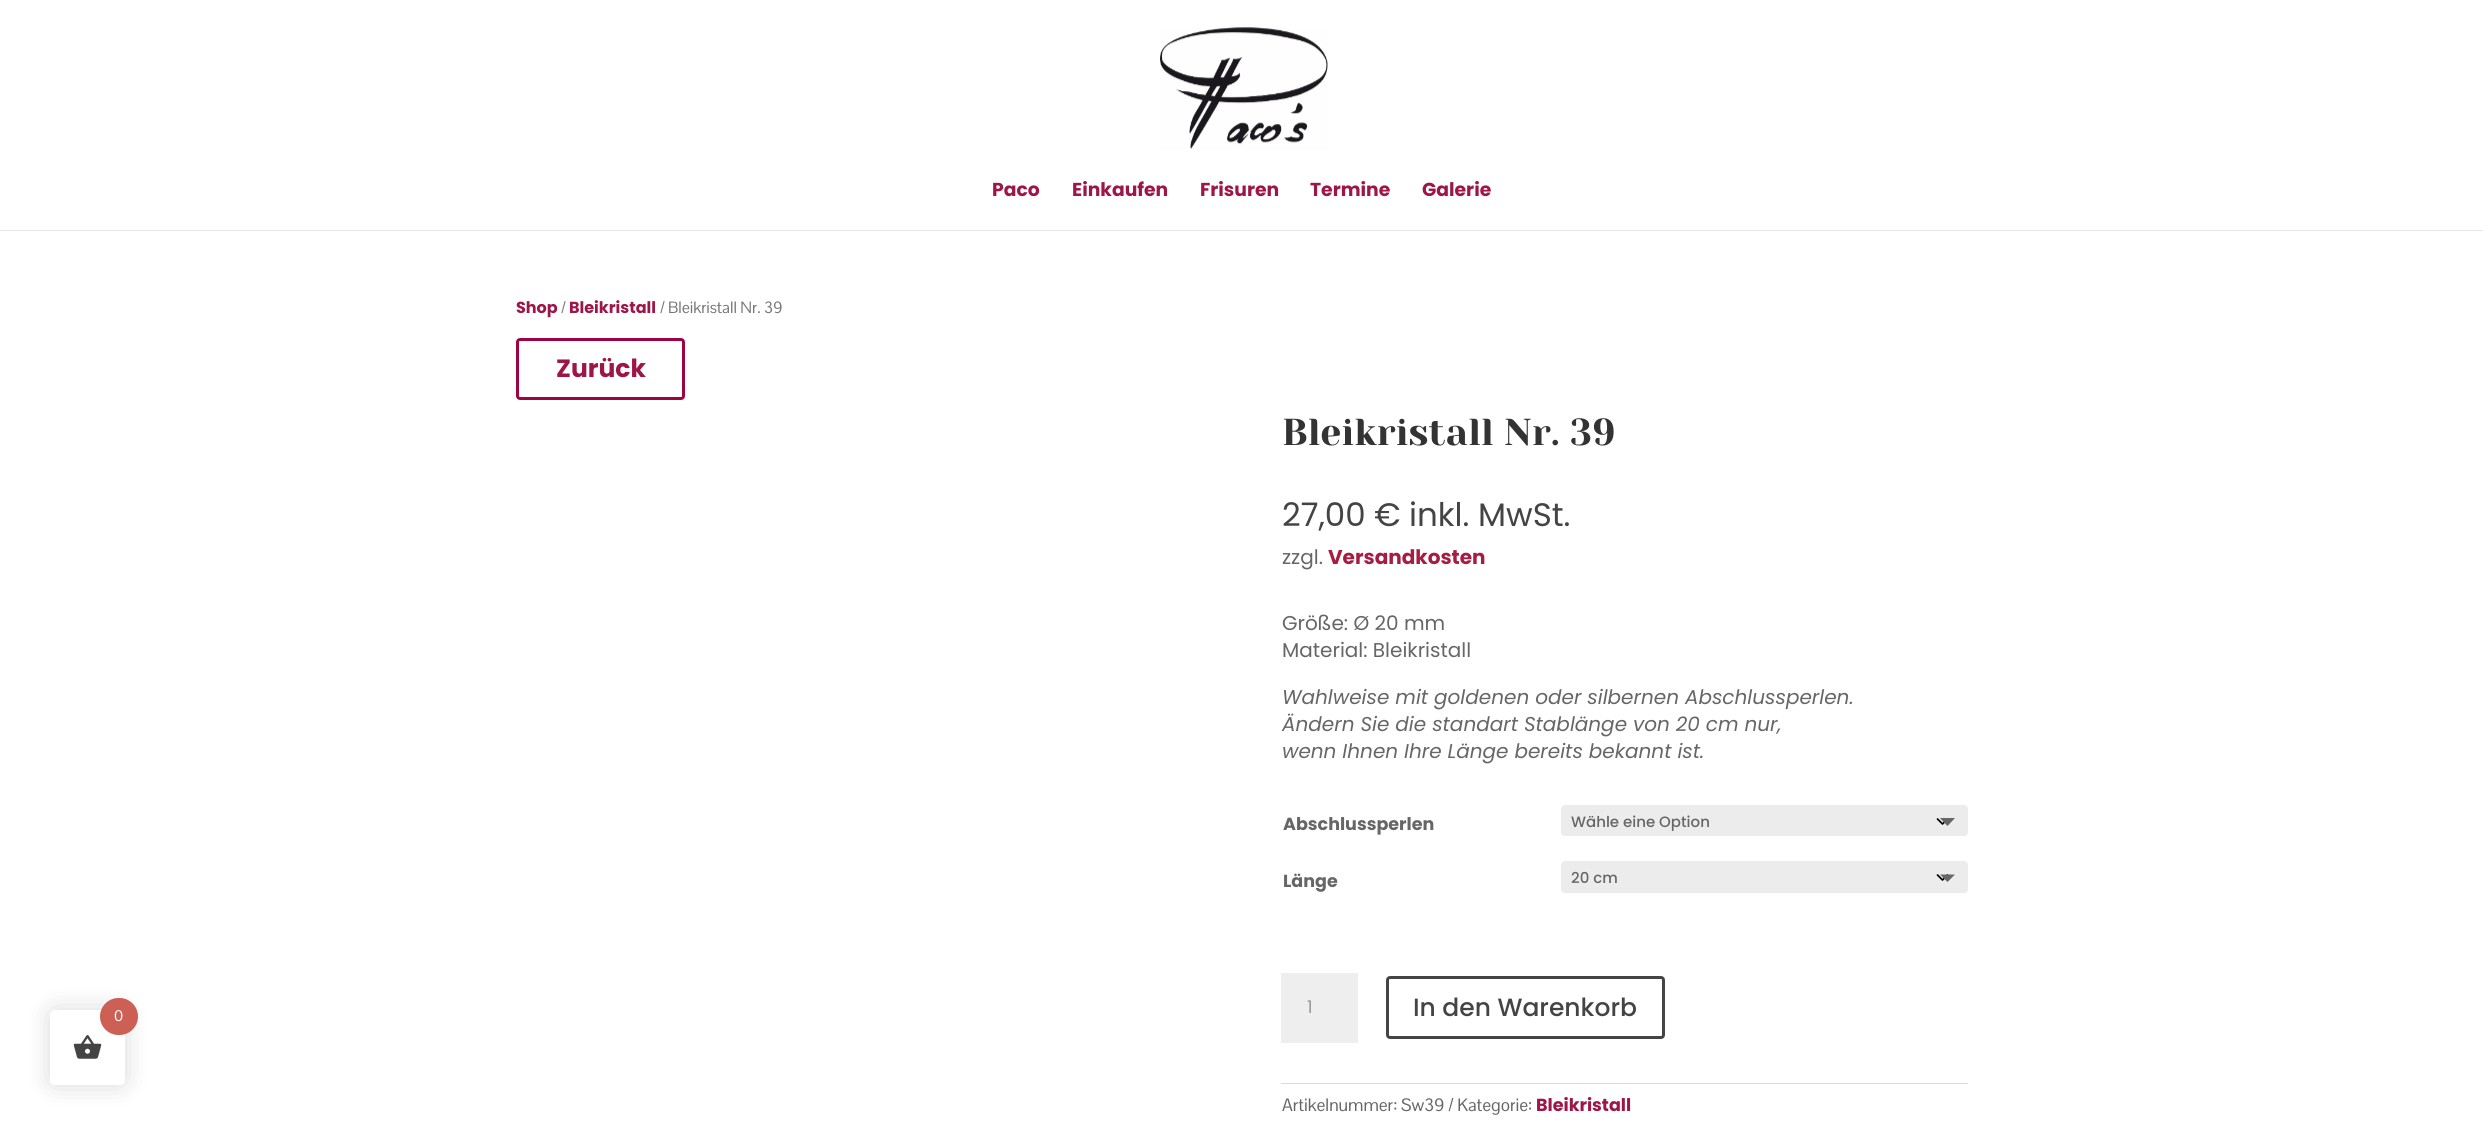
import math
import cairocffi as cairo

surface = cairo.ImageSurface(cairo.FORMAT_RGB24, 2483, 1134)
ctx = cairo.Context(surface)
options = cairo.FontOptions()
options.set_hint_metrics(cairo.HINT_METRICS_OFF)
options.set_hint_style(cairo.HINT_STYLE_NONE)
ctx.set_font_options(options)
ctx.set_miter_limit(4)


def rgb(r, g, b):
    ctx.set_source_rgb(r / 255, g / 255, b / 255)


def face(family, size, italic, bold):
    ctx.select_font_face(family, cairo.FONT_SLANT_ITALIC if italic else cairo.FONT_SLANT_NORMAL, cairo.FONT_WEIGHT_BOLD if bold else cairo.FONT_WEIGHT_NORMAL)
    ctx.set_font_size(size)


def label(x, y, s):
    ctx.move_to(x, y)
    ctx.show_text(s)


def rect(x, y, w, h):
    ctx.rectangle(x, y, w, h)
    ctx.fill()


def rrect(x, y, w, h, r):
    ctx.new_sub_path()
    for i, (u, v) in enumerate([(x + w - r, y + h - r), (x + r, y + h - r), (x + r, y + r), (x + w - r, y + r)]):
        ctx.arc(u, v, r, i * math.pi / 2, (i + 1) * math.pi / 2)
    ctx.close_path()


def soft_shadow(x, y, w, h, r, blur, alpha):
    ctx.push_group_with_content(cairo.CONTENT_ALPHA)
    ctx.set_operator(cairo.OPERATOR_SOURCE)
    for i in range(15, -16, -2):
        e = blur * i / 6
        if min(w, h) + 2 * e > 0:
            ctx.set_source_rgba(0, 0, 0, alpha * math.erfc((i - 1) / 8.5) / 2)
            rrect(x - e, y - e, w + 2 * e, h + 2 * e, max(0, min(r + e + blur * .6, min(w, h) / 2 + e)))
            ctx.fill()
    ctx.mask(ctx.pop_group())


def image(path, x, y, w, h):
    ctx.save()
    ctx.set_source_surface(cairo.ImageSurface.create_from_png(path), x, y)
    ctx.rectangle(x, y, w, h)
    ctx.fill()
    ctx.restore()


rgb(255, 255, 255)
ctx.paint()
rgb(0, 0, 0)
soft_shadow(50, 1010, 75, 75, 5, 12.5, 0.15)
rgb(255, 255, 255)
rrect(50, 1010, 75, 75, 5)
ctx.fill()
rgb(204, 96, 85)
rrect(100, 998, 38, 37, 18.5)
ctx.fill()
face('Pontano Sans', 15, 0, 0)
rgb(255, 255, 255)
label(114, 1021, '0')
image('image0.png', 73, 1035, 29, 24)
rgb(230, 230, 230)
ctx.new_path()
ctx.move_to(0, 230)
ctx.line_to(0, 231)
ctx.line_to(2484, 231)
ctx.line_to(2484, 1)
ctx.line_to(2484, 230)
ctx.close_path()
ctx.fill()
image('image1.png', 1160, 27, 168, 123)
face('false', 18.75, 0, 1)
rgb(158, 21, 72)
label(992, 196, 'Paco')
label(1072, 196, 'Einkaufen')
label(1200, 196, 'Frisuren')
label(1310, 196, 'Termine')
label(1422, 196, 'Galerie')
face('false', 16, 0, 1)
label(516, 313, 'Shop')
face('Pontano Sans', 16, 0, 0)
rgb(118, 118, 118)
label(561, 313, '/')
face('false', 16, 0, 1)
rgb(158, 21, 72)
label(569, 313, 'Bleikristall')
face('Pontano Sans', 16, 0, 0)
rgb(118, 118, 118)
label(660, 313, '/ Bleikristall Nr. 39')
rrect(517.5, 339.5, 166, 59, 2.5)
rgb(158, 4, 68)
ctx.set_line_width(3)
ctx.stroke()
face('false', 25, 0, 1)
rgb(158, 21, 72)
label(556, 377, 'Zurück')
face('Yeseva One', 37.5, 0, 0)
rgb(51, 51, 51)
label(1282, 445, 'Bleikristall Nr. 39')
face('false', 32.5, 0, 0)
rgb(68, 68, 68)
label(1282, 526, '27,00 €')
face('Poppins', 32.5, 0, 0)
label(1409, 526, 'inkl. MwSt.')
face('false', 20, 0, 0)
rgb(102, 102, 102)
label(1282, 564, 'zzgl.')
face('false', 20, 0, 1)
rgb(165, 29, 66)
label(1328, 564, 'Versandkosten')
face('false', 20, 0, 0)
rgb(102, 102, 102)
label(1282, 630, 'Größe: Ø 20 mm')
label(1282, 657, 'Material: Bleikristall')
face('false', 20, 1, 0)
label(1282, 704, 'Wahlweise mit goldenen oder silbernen Abschlussperlen.')
label(1282, 731, 'Ändern Sie die standart Stablänge von 20 cm nur,')
label(1282, 758, 'wenn Ihnen Ihre Länge bereits bekannt ist.')
face('Poppins', 17.5, 0, 1)
label(1283, 830, 'Abschlussperlen')
rgb(236, 236, 236)
rrect(1561, 805, 407, 31, 4)
ctx.fill()
ctx.new_path()
ctx.move_to(1937.5, 819)
ctx.line_to(1942.5, 824)
ctx.line_to(1947.5, 819)
rgb(0, 0, 0)
ctx.set_line_width(1.7)
ctx.set_line_cap(cairo.LINE_CAP_ROUND)
ctx.set_line_join(cairo.LINE_JOIN_ROUND)
ctx.stroke()
face('Poppins Medium', 15, 0, 0)
rgb(102, 102, 102)
label(1571, 827, 'Wähle eine Option')
ctx.new_path()
ctx.move_to(1940, 818)
ctx.line_to(1955, 818)
ctx.line_to(1947.5, 826)
ctx.close_path()
ctx.fill()
face('Poppins', 17.5, 0, 1)
label(1283, 887, 'Länge')
rgb(236, 236, 236)
rrect(1561, 861, 407, 32, 4)
ctx.fill()
ctx.new_path()
ctx.move_to(1937.5, 875)
ctx.line_to(1942.5, 880)
ctx.line_to(1947.5, 875)
rgb(0, 0, 0)
ctx.stroke()
face('Poppins Medium', 15, 0, 0)
rgb(102, 102, 102)
label(1571, 883, '20 cm')
ctx.new_path()
ctx.move_to(1940, 874.5)
ctx.line_to(1955, 874.5)
ctx.line_to(1947.5, 882)
ctx.close_path()
ctx.fill()
rgb(238, 238, 238)
rect(1281, 973, 77, 70)
face('Poppins', 17.5, 0, 0)
rgb(153, 153, 153)
label(1307, 1013, '1')
rrect(1387.5, 977.5, 276, 60, 2.5)
rgb(68, 68, 68)
ctx.set_line_width(3)
ctx.set_line_cap(cairo.LINE_CAP_BUTT)
ctx.set_line_join(cairo.LINE_JOIN_MITER)
ctx.stroke()
face('Poppins Medium', 25, 0, 0)
label(1413, 1016, 'In den Warenkorb')
rgb(218, 218, 218)
rect(1281, 1083, 687, 1)
face('Pontano Sans', 17.5, 0, 0)
rgb(102, 102, 102)
label(1282, 1111, 'Artikelnummer: Sw39 / Kategorie:')
face('false', 17.5, 0, 1)
rgb(158, 21, 72)
label(1536, 1111, 'Bleikristall')
surface.write_to_png('render.png')
